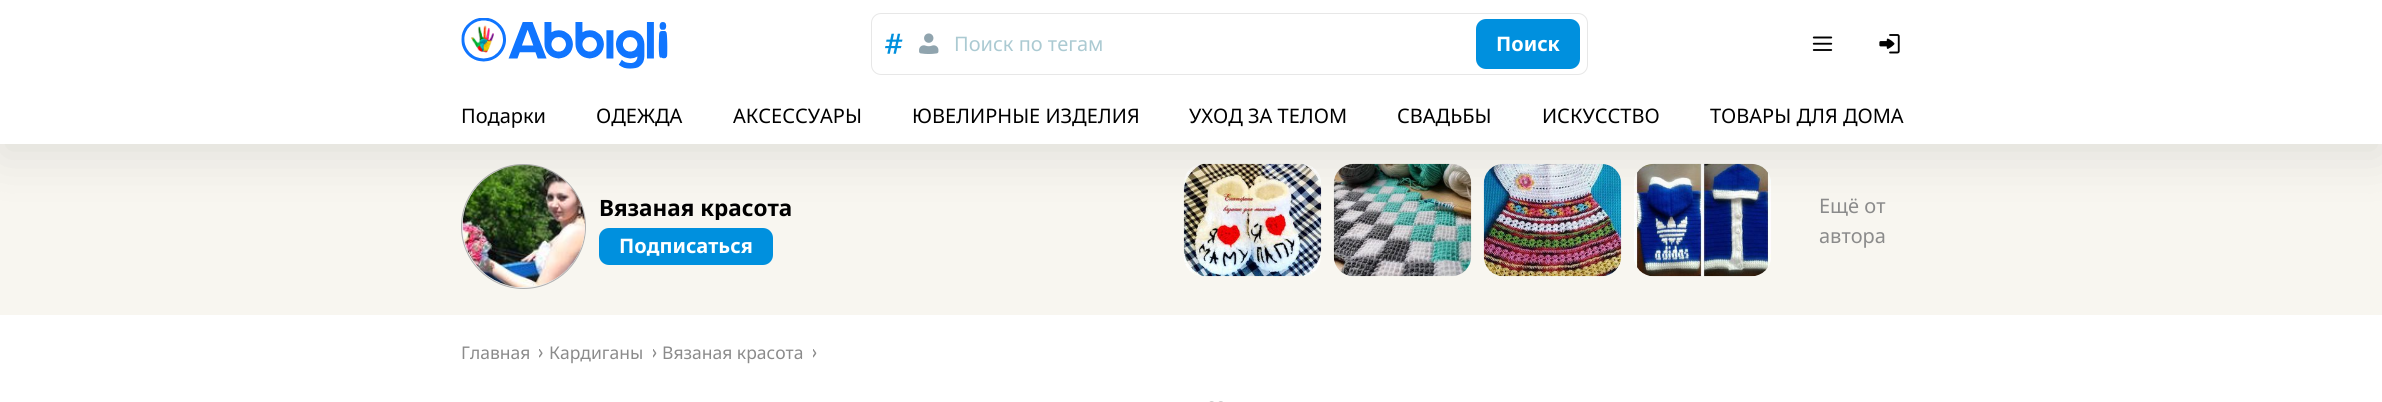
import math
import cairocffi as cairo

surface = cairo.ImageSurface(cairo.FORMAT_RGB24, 2382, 402)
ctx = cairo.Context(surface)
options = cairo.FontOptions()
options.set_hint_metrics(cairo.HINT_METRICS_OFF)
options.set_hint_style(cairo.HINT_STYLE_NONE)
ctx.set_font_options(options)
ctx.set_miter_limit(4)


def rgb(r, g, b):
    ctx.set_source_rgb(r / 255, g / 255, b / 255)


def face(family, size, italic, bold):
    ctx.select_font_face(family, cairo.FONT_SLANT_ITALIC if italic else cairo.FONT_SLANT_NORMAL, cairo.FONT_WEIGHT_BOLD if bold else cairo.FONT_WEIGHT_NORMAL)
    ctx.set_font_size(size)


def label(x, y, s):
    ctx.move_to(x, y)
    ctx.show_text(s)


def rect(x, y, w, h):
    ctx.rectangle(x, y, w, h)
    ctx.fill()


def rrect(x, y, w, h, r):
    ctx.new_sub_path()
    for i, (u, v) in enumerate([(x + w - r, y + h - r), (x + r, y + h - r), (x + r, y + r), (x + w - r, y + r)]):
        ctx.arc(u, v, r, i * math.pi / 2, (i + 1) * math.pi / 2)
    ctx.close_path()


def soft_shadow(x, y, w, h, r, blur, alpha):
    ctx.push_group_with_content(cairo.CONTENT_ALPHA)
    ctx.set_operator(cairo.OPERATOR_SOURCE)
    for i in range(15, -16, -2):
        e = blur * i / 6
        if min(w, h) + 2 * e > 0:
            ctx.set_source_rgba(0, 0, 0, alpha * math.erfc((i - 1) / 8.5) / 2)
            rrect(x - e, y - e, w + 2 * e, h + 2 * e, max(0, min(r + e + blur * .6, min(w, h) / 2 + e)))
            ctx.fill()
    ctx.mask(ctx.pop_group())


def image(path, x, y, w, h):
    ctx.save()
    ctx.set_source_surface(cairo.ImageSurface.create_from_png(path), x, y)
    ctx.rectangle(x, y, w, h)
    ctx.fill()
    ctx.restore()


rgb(248, 246, 240)
ctx.paint()
rgb(238, 238, 238)
ctx.arc(523.5, 226.5, 62, 0, 2 * math.pi)
ctx.fill_preserve()
rgb(175, 175, 175)
ctx.set_line_width(1)
ctx.stroke()
image('image5.png', 462, 165, 123, 123)
rgb(0, 144, 222)
rrect(599, 228, 174, 37, 10)
ctx.fill()
image('image6.png', 1183, 163, 139, 114)
image('image7.png', 1333, 163, 139, 114)
image('image8.png', 1483, 163, 139, 114)
image('image9.png', 1634, 163, 137, 114)
rgb(0, 0, 0)
soft_shadow(0, 13, 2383, 143, 0, 25, 0.1)
rgb(255, 255, 255)
rect(0, 0, 2382, 144)
image('image0.png', 461, 18, 207, 51)
rrect(871.5, 13.5, 716, 61, 9.5)
rgb(231, 231, 231)
ctx.stroke()
image('image1.png', 885, 33, 18, 21)
image('image2.png', 919, 33, 20, 21)
face('Noto Sans', 20, 0, 0)
rgb(171, 202, 210)
label(954, 51, 'Поиск по тегам')
rgb(0, 144, 222)
rrect(1476, 19, 104, 50, 10)
ctx.fill()
face('Noto Sans', 20, 0, 1)
rgb(255, 255, 255)
label(1496, 51, 'Поиск')
image('image3.png', 1812, 36, 21, 15)
image('image4.png', 1879, 34, 21, 20)
face('Noto Sans', 20, 0, 0)
rgb(0, 0, 0)
label(461, 123, 'Подарки')
label(596, 123, 'ОДЕЖДА')
label(733, 123, 'АКСЕССУАРЫ')
label(912, 123, 'ЮВЕЛИРНЫЕ ИЗДЕЛИЯ')
label(1189, 123, 'УХОД ЗА ТЕЛОМ')
label(1397, 123, 'СВАДЬБЫ')
label(1542, 123, 'ИСКУССТВО')
label(1710, 123, 'ТОВАРЫ ДЛЯ ДОМА')
ctx.save()
ctx.rectangle(599, 195, 194, 25)
ctx.clip()
face('Noto Sans', 22.5, 0, 1)
label(599, 216, 'Вязаная красота')
ctx.restore()
face('Noto Sans', 20, 0, 1)
rgb(255, 255, 255)
label(619, 253, 'Подписаться')
face('Noto Sans', 20, 0, 0)
rgb(139, 139, 139)
label(1819, 213, 'Ещё от')
label(1819, 243, 'автора')
rgb(255, 255, 255)
rect(0, 315, 2382, 87)
face('Noto Sans', 17.5, 0, 0)
rgb(139, 139, 139)
label(461, 359, 'Главная')
image('image10.png', 539, 349, 4, 9)
label(549, 359, 'Кардиганы')
image('image11.png', 653, 349, 4, 9)
label(662, 359, 'Вязаная красота')
image('image11.png', 813, 349, 4, 9)
image('image12.png', 1209, 401, 14, 1)
surface.write_to_png('render.png')
